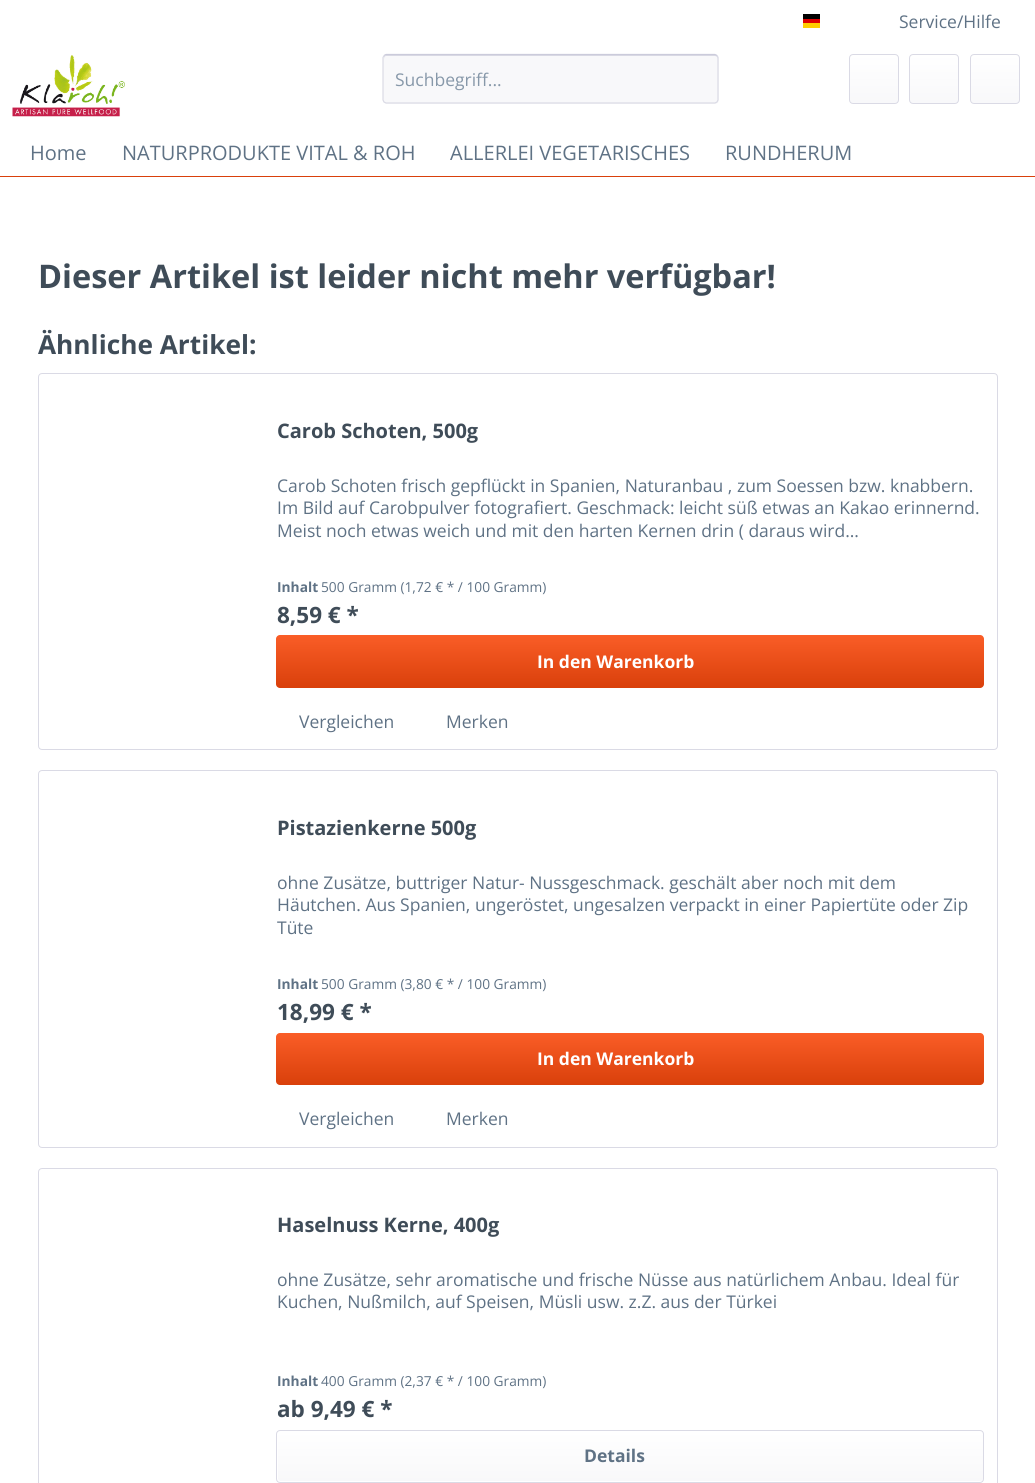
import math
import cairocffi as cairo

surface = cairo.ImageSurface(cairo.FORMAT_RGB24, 1035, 1483)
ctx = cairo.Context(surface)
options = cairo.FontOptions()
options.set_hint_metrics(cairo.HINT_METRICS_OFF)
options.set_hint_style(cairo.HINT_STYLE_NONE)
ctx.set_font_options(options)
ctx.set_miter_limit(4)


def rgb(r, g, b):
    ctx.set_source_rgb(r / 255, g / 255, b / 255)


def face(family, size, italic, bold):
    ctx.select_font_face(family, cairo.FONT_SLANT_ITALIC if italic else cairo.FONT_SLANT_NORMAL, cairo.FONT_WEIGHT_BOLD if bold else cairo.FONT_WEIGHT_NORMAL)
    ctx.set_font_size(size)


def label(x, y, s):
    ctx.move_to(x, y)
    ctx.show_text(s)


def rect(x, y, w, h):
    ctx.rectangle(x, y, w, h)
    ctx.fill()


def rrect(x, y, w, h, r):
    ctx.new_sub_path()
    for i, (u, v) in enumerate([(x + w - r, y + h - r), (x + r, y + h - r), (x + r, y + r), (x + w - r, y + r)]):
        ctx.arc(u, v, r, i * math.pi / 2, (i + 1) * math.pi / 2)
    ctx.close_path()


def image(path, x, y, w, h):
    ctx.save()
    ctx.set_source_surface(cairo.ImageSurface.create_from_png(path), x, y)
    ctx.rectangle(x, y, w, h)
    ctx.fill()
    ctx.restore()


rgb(255, 255, 255)
ctx.paint()
rgb(0, 0, 0)
rect(803, 14, 17, 5)
rgb(221, 0, 0)
rect(803, 19, 17, 4)
rgb(255, 206, 0)
rect(803, 23, 17, 5)
face('Open Sans', 17.5, 0, 0)
rgb(95, 114, 133)
label(899, 28, 'Service/Hilfe')
image('image0.png', 12, 55, 113, 62)
rgb(248, 248, 250)
rrect(383, 54, 336, 50, 4)
ctx.fill()
rgb(218, 218, 229)
ctx.new_path()
ctx.move_to(386, 56)
ctx.line_to(715, 56)
ctx.curve_to(716, 56, 718, 57, 718, 59)
ctx.curve_to(718, 57, 718, 55, 716, 55)
ctx.line_to(386, 55)
ctx.line_to(384, 56)
ctx.line_to(384, 59)
ctx.curve_to(384, 57, 385, 56, 386, 56)
ctx.close_path()
ctx.fill()
ctx.new_path()
ctx.move_to(384, 55.5)
ctx.line_to(386, 54.5)
ctx.line_to(715, 54.5)
ctx.line_to(717, 55.5)
rgb(203, 203, 219)
ctx.set_line_width(1.2)
ctx.stroke()
ctx.new_path()
ctx.move_to(717, 55.5)
ctx.line_to(718, 57.5)
ctx.line_to(718, 100)
ctx.line_to(717, 102)
ctx.line_to(715, 103)
ctx.line_to(386, 103)
ctx.line_to(384, 102)
ctx.line_to(383, 100)
ctx.line_to(383, 57.5)
ctx.line_to(384, 55.5)
rgb(218, 218, 229)
ctx.stroke()
rgb(135, 152, 169)
label(395, 86, 'Suchbegriff...')
gradient = cairo.LinearGradient(874, 55, 874, 103)
gradient.add_color_stop_rgba(0, 1, 1, 1, 1)
gradient.add_color_stop_rgba(1, 0.973, 0.973, 0.98, 1)
ctx.set_source(gradient)
rrect(850, 55, 48, 48, 2.5)
ctx.fill()
rrect(849.5, 54.5, 49, 49, 3.5)
rgb(218, 218, 229)
ctx.set_line_width(1)
ctx.stroke()
gradient = cairo.LinearGradient(934, 55, 934, 103)
gradient.add_color_stop_rgba(0, 1, 1, 1, 1)
gradient.add_color_stop_rgba(1, 0.973, 0.973, 0.98, 1)
ctx.set_source(gradient)
rrect(910, 55, 48, 48, 2.5)
ctx.fill()
rrect(909.5, 54.5, 49, 49, 3.5)
rgb(218, 218, 229)
ctx.stroke()
gradient = cairo.LinearGradient(995, 55, 995, 103)
gradient.add_color_stop_rgba(0, 1, 1, 1, 1)
gradient.add_color_stop_rgba(1, 0.973, 0.973, 0.98, 1)
ctx.set_source(gradient)
rrect(971, 55, 48, 48, 2.5)
ctx.fill()
rrect(970.5, 54.5, 49, 49, 3.5)
rgb(218, 218, 229)
ctx.stroke()
rgb(217, 64, 11)
rect(0, 176, 1035, 1)
face('Open Sans', 20, 0, 0)
rgb(95, 114, 133)
label(30, 160, 'Home')
label(122, 160, 'NATURPRODUKTE VITAL & ROH')
label(450, 160, 'ALLERLEI VEGETARISCHES')
label(725, 160, 'RUNDHERUM')
face('Open Sans', 32.5, 0, 1)
rgb(63, 76, 88)
label(38, 288, 'Dieser Artikel ist leider nicht mehr verfügbar!')
face('Open Sans', 26.25, 0, 1)
label(38, 354, 'Ähnliche Artikel:')
rrect(38.5, 373.5, 959, 376, 3.5)
rgb(218, 218, 229)
ctx.stroke()
face('Open Sans', 20, 0, 1)
rgb(63, 76, 88)
label(277, 438, 'Carob Schoten, 500g')
face('Open Sans', 17.5, 0, 0)
rgb(95, 114, 133)
label(277, 492, 'Carob Schoten frisch gepflückt in Spanien, Naturanbau , zum Soessen bzw. knabbern.')
label(277, 514, 'Im Bild auf Carobpulver fotografiert. Geschmack: leicht süß etwas an Kakao erinnernd.')
label(277, 537, 'Meist noch etwas weich und mit den harten Kernen drin ( daraus wird...')
face('Open Sans', 13.75, 0, 1)
label(277, 592, 'Inhalt')
face('Open Sans', 13.75, 0, 0)
label(321, 592, '500 Gramm (1,72 € * / 100 Gramm)')
face('Open Sans', 22.5, 0, 1)
rgb(63, 76, 88)
label(277, 623, '8,59 € *')
gradient = cairo.LinearGradient(630, 635, 630, 688)
gradient.add_color_stop_rgba(0, 0.98, 0.365, 0.153, 1)
gradient.add_color_stop_rgba(1, 0.851, 0.251, 0.043, 1)
ctx.set_source(gradient)
rrect(276, 635, 708, 53, 4)
ctx.fill()
face('Open Sans', 17.5, 0, 1)
rgb(255, 255, 255)
label(537, 668, 'In den Warenkorb')
face('Open Sans', 17.5, 0, 0)
rgb(95, 114, 133)
label(299, 728, 'Vergleichen')
label(446, 728, 'Merken')
rrect(38.5, 770.5, 959, 377, 3.5)
rgb(218, 218, 229)
ctx.stroke()
face('Open Sans', 20, 0, 1)
rgb(63, 76, 88)
label(277, 835, 'Pistazienkerne 500g')
face('Open Sans', 17.5, 0, 0)
rgb(95, 114, 133)
label(277, 889, 'ohne Zusätze, buttriger Natur- Nussgeschmack. geschält aber noch mit dem')
label(277, 911, 'Häutchen. Aus Spanien, ungeröstet, ungesalzen verpackt in einer Papiertüte oder Zip')
label(277, 934, 'Tüte')
face('Open Sans', 13.75, 0, 1)
label(277, 989, 'Inhalt')
face('Open Sans', 13.75, 0, 0)
label(321, 989, '500 Gramm (3,80 € * / 100 Gramm)')
face('Open Sans', 22.5, 0, 1)
rgb(63, 76, 88)
label(277, 1020, '18,99 € *')
gradient = cairo.LinearGradient(630, 1033, 630, 1085)
gradient.add_color_stop_rgba(0, 0.98, 0.365, 0.153, 1)
gradient.add_color_stop_rgba(1, 0.851, 0.251, 0.043, 1)
ctx.set_source(gradient)
rrect(276, 1033, 708, 52, 4)
ctx.fill()
face('Open Sans', 17.5, 0, 1)
rgb(255, 255, 255)
label(537, 1065, 'In den Warenkorb')
face('Open Sans', 17.5, 0, 0)
rgb(95, 114, 133)
label(299, 1125, 'Vergleichen')
label(446, 1125, 'Merken')
rrect(38.5, 1168.5, 959, 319, 3.5)
rgb(218, 218, 229)
ctx.stroke()
face('Open Sans', 20, 0, 1)
rgb(63, 76, 88)
label(277, 1232, 'Haselnuss Kerne, 400g')
face('Open Sans', 17.5, 0, 0)
rgb(95, 114, 133)
label(277, 1286, 'ohne Zusätze, sehr aromatische und frische Nüsse aus natürlichem Anbau. Ideal für')
label(277, 1308, 'Kuchen, Nußmilch, auf Speisen, Müsli usw. z.Z. aus der Türkei')
face('Open Sans', 13.75, 0, 1)
label(277, 1386, 'Inhalt')
face('Open Sans', 13.75, 0, 0)
label(321, 1386, '400 Gramm (2,37 € * / 100 Gramm)')
face('Open Sans', 22.5, 0, 1)
rgb(63, 76, 88)
label(277, 1417, 'ab 9,49 € *')
gradient = cairo.LinearGradient(630, 1431, 630, 1481)
gradient.add_color_stop_rgba(0, 1, 1, 1, 1)
gradient.add_color_stop_rgba(1, 0.973, 0.973, 0.98, 1)
ctx.set_source(gradient)
rrect(278, 1431, 705, 50, 2.5)
ctx.fill()
rrect(276.5, 1430.5, 707, 52, 3.5)
rgb(218, 218, 229)
ctx.stroke()
face('Open Sans', 17.5, 0, 1)
rgb(95, 114, 133)
label(584, 1462, 'Details')
surface.write_to_png('render.png')
